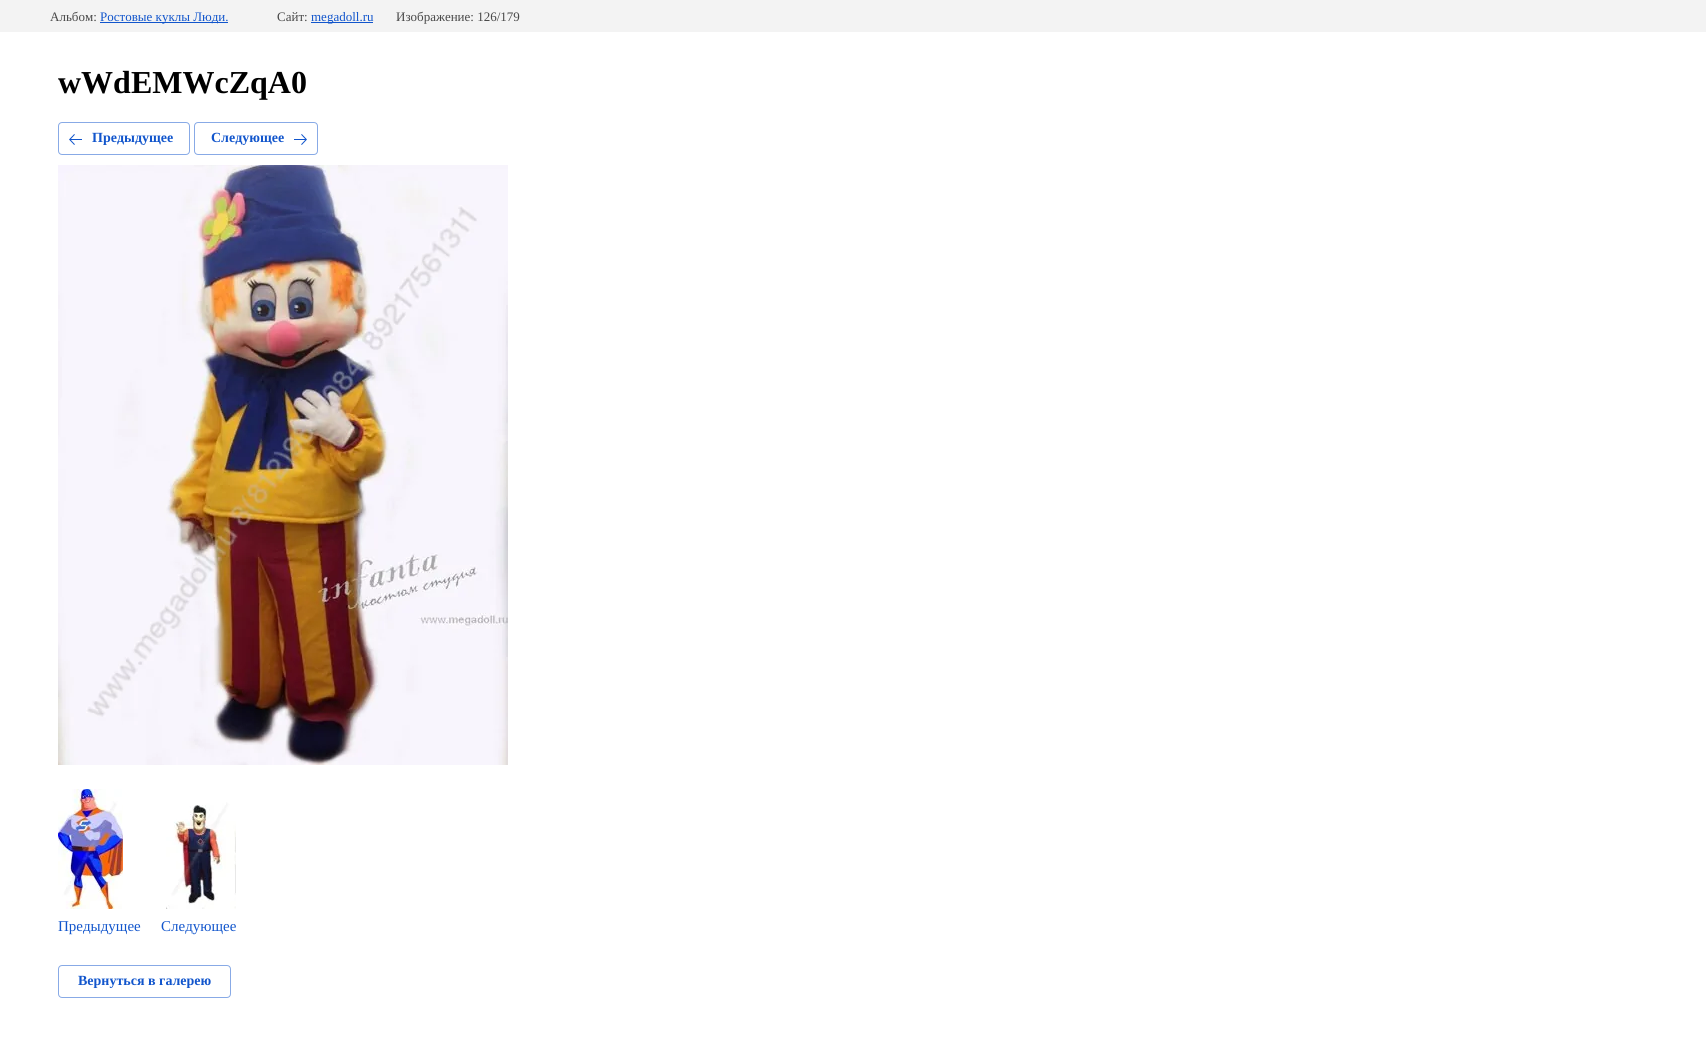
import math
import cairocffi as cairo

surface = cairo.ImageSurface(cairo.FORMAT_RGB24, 1706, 1038)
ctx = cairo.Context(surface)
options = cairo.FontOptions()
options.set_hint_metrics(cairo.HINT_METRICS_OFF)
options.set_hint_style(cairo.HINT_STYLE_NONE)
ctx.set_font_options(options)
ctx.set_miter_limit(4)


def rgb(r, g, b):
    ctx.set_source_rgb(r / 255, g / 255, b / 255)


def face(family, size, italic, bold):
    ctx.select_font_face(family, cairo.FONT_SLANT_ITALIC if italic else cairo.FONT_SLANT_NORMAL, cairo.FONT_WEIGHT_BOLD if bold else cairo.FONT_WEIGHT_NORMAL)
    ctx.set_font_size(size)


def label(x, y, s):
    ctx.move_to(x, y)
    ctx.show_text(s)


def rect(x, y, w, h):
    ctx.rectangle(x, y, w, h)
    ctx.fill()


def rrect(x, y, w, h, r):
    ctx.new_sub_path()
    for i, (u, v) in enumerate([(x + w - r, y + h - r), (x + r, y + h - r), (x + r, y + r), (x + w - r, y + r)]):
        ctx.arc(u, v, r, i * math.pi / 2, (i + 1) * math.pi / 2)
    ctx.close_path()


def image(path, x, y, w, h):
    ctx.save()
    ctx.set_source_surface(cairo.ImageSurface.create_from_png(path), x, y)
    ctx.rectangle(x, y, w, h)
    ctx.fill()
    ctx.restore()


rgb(255, 255, 255)
ctx.paint()
rgb(243, 243, 243)
rect(0, 0, 1706, 32)
face('Liberation Serif', 13, 0, 0)
rgb(72, 72, 72)
label(50, 21, 'Альбом:')
rgb(17, 85, 204)
rect(100, 22, 128, 1)
label(100, 21, 'Ростовые куклы Люди.')
rgb(72, 72, 72)
label(277, 21, 'Сайт:')
rgb(17, 85, 204)
rect(311, 22, 62, 1)
label(311, 21, 'megadoll.ru')
rgb(72, 72, 72)
label(396, 21, 'Изображение: 126/179')
face('Liberation Serif', 32, 0, 1)
rgb(0, 0, 0)
label(58, 93, 'wWdEMWcZqA0')
rrect(58.5, 122.5, 131, 32, 3.5)
rgb(136, 170, 230)
ctx.set_line_width(1)
ctx.stroke()
image('image0.png', 69, 134, 13, 11)
face('Liberation Serif', 14, 0, 1)
rgb(17, 85, 204)
label(92, 142, 'Предыдущее')
rrect(194.5, 122.5, 123, 32, 3.5)
rgb(136, 170, 230)
ctx.stroke()
rgb(17, 85, 204)
label(211, 142, 'Следующее')
image('image1.png', 294, 134, 13, 11)
image('image2.png', 58, 165, 450, 600)
image('image3.png', 58, 789, 65, 120)
face('Liberation Serif', 15, 0, 0)
label(58, 931, 'Предыдущее')
image('image4.png', 166, 802, 70, 107)
label(161, 931, 'Следующее')
rrect(58.5, 965.5, 172, 32, 3.5)
rgb(136, 170, 230)
ctx.stroke()
face('Liberation Serif', 14, 0, 1)
rgb(17, 85, 204)
label(78, 985, 'Вернуться в галерею')
surface.write_to_png('render.png')
